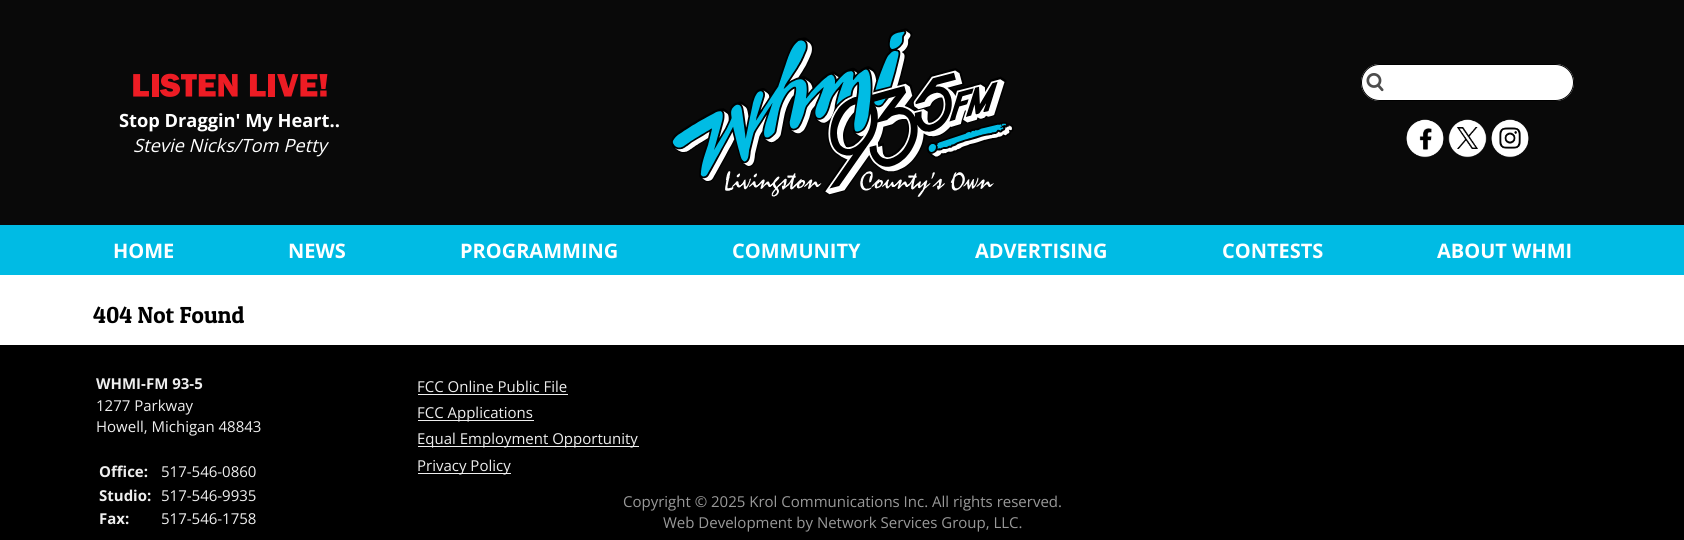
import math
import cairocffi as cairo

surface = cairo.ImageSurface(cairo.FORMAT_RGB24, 1684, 540)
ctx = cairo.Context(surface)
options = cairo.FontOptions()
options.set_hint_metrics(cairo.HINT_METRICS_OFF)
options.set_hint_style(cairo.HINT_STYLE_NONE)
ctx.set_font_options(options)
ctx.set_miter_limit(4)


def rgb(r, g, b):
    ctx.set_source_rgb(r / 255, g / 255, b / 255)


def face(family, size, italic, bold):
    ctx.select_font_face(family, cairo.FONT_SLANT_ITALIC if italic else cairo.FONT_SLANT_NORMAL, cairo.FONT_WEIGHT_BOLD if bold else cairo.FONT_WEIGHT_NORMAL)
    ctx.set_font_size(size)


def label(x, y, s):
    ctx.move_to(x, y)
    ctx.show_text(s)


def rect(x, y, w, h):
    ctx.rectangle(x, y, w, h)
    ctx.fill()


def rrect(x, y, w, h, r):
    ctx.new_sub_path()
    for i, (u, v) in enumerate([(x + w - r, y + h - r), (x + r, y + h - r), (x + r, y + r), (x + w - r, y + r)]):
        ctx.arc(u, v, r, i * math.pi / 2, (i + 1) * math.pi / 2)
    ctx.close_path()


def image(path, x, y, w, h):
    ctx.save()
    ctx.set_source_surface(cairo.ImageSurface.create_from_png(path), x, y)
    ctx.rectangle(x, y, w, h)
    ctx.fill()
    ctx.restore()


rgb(255, 255, 255)
ctx.paint()
rgb(9, 9, 9)
rect(0, 0, 1684, 225)
image('image0.png', 133, 73, 195, 24)
face('Open Sans', 18.25, 0, 1)
rgb(255, 255, 255)
label(119, 127, 'Stop Draggin\' My Heart..')
face('Open Sans', 18.25, 1, 0)
label(133, 152, 'Stevie Nicks/Tom Petty')
image('image1.png', 671, 28, 343, 169)
rrect(1361, 64, 213, 37, 18.5)
ctx.fill()
image('image2.png', 1366, 73, 18, 19)
rrect(1361.5, 64.5, 212, 36, 18)
rgb(0, 0, 0)
ctx.set_line_width(1)
ctx.stroke()
image('image3.png', 1406, 119, 38, 39)
image('image4.png', 1448, 119, 39, 39)
image('image5.png', 1491, 119, 38, 39)
rgb(0, 187, 228)
rect(0, 225, 1684, 50)
face('Open Sans', 20, 0, 1)
rgb(255, 255, 255)
label(113, 258, 'HOME')
label(288, 258, 'NEWS')
label(460, 258, 'PROGRAMMING')
label(732, 258, 'COMMUNITY')
label(975, 258, 'ADVERTISING')
label(1222, 258, 'CONTESTS')
label(1437, 258, 'ABOUT WHMI')
face('Patua One', 23.25, 0, 0)
rgb(0, 0, 0)
label(93, 323, '404 Not Found')
rect(0, 345, 1684, 195)
face('Open Sans', 15, 0, 1)
rgb(238, 238, 238)
label(96, 389, 'WHMI-FM 93-5')
face('Open Sans', 15, 0, 0)
label(96, 411, '1277 Parkway')
label(96, 432, 'Howell, Michigan 48843')
face('Open Sans', 15, 0, 1)
label(99, 477, 'Office:')
face('Open Sans', 15, 0, 0)
label(161, 477, '517-546-0860')
face('Open Sans', 15, 0, 1)
label(99, 501, 'Studio:')
face('Open Sans', 15, 0, 0)
label(161, 501, '517-546-9935')
face('Open Sans', 15, 0, 1)
label(99, 524, 'Fax:')
face('Open Sans', 15, 0, 0)
label(161, 524, '517-546-1758')
label(417, 392, 'FCC Online Public File')
rect(418, 394, 150, 1)
rect(418, 420, 116, 1)
label(417, 418, 'FCC Applications')
rect(418, 446, 221, 1)
label(417, 444, 'Equal Employment Opportunity')
rect(418, 473, 93, 1)
label(417, 471, 'Privacy Policy')
rgb(153, 153, 153)
label(623, 507, 'Copyright © 2025 Krol Communications Inc. All rights reserved.')
label(663, 528, 'Web Development by Network Services Group, LLC.')
surface.write_to_png('render.png')
